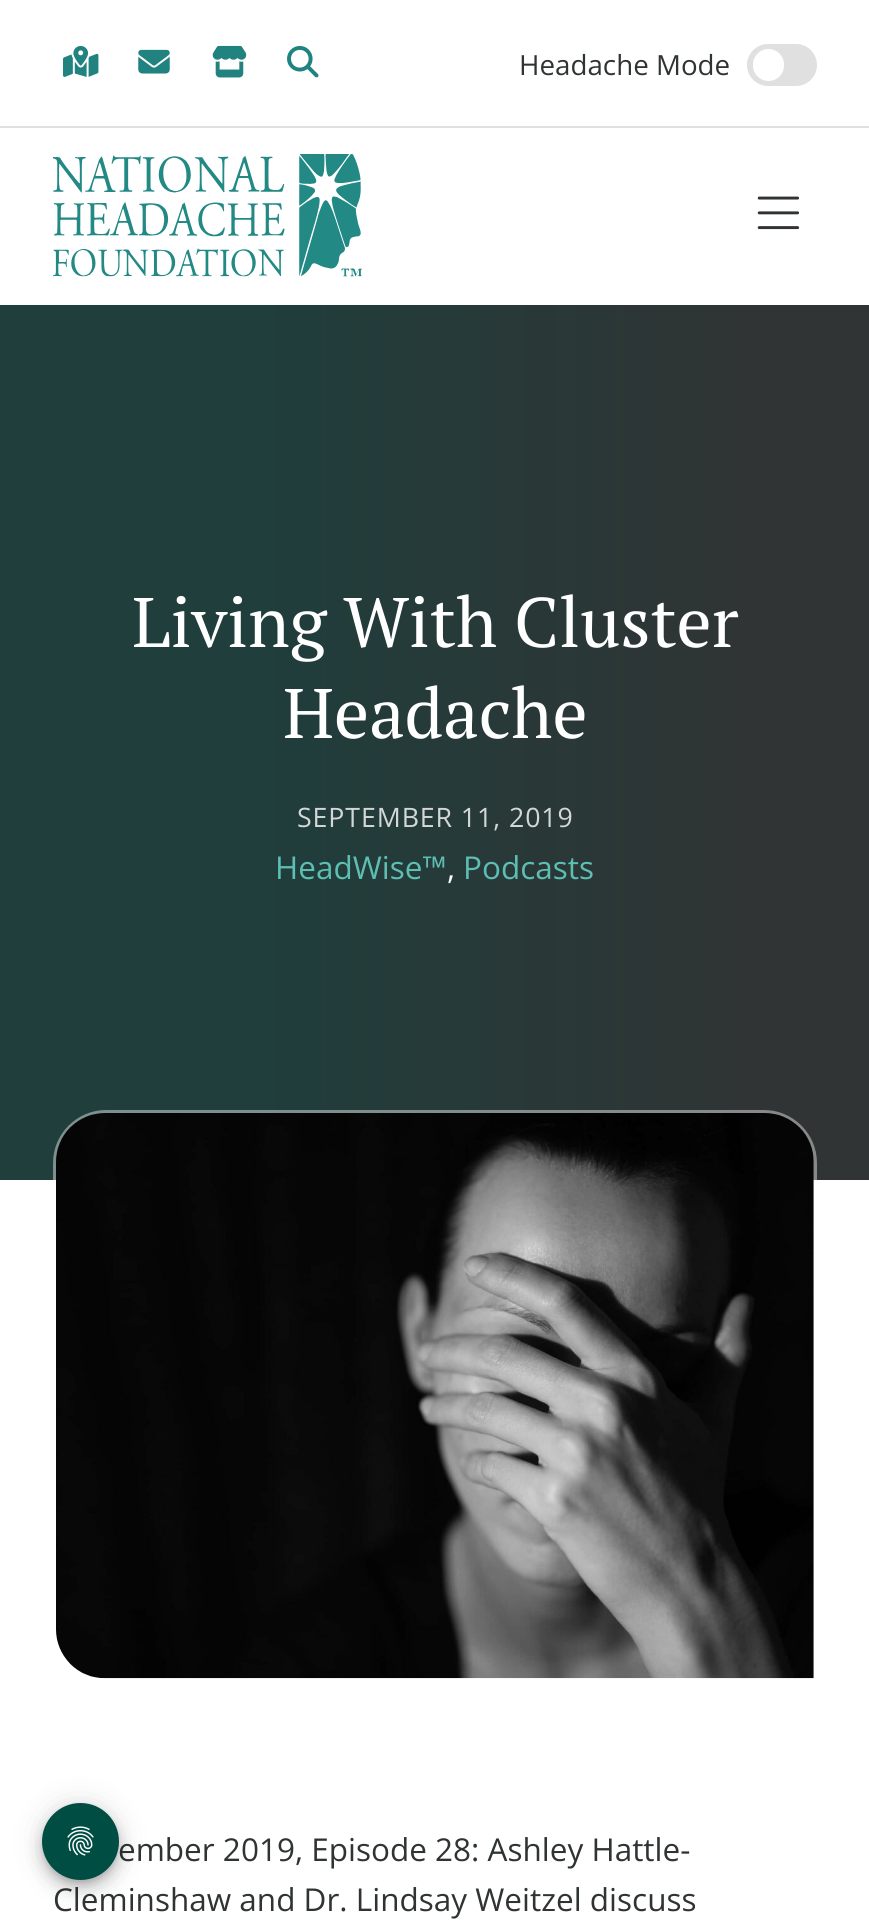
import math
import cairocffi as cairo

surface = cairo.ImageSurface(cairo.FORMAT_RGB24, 869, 1920)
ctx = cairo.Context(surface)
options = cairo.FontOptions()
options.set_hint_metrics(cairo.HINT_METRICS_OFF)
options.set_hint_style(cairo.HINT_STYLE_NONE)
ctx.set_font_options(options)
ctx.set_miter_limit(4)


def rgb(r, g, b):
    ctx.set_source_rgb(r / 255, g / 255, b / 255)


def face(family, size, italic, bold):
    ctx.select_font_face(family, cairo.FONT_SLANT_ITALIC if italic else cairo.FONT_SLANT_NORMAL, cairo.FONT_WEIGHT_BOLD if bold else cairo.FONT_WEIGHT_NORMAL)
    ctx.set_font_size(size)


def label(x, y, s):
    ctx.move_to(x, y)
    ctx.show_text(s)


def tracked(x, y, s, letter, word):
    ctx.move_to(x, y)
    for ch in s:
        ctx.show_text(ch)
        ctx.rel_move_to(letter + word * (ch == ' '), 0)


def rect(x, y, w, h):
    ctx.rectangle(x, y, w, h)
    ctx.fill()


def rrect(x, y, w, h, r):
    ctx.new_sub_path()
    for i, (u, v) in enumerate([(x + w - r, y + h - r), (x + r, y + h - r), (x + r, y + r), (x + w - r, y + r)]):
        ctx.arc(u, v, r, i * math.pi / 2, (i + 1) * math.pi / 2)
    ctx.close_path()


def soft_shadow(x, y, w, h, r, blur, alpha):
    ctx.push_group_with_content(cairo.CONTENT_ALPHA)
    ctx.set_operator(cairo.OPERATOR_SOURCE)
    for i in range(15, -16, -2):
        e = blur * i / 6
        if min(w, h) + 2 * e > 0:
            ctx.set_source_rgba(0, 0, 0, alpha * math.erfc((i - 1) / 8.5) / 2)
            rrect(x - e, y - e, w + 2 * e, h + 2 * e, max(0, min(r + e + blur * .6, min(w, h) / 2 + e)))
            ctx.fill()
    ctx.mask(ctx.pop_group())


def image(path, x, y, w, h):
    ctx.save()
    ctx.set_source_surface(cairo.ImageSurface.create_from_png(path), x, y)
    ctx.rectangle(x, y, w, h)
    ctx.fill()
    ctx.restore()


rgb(255, 255, 255)
ctx.paint()
rgb(224, 224, 224)
rect(0, 126, 869, 2)
image('image0.png', 63, 45, 36, 32)
image('image1.png', 138, 49, 32, 25)
image('image2.png', 212, 45, 35, 33)
image('image3.png', 287, 45, 32, 33)
face('Open Sans', 27.75, 0, 0)
rgb(47, 51, 51)
label(519, 75, 'Headache Mode')
rgb(224, 224, 224)
rrect(747, 44, 70, 42, 21)
ctx.fill()
rgb(255, 255, 255)
rrect(753, 49, 31, 32, 15.5)
ctx.fill()
image('image4.png', 53, 154, 309, 123)
image('image5.png', 757, 196, 43, 34)
gradient = cairo.LinearGradient(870, 742, 0, 742)
gradient.add_color_stop_rgba(0.14, 0.188, 0.204, 0.204, 1)
gradient.add_color_stop_rgba(0.71, 0.122, 0.243, 0.235, 1)
ctx.set_source(gradient)
rect(0, 305, 869, 875)
face('PT Serif', 70, 0, 0)
rgb(255, 255, 255)
label(132, 647, 'Living With Cluster')
label(283, 738, 'Headache')
face('Open Sans', 26.75, 0, 0)
rgb(211, 216, 215)
tracked(297, 827, 'SEPTEMBER 11, 2019', 0.9, 0)
face('Open Sans', 31.5, 0, 0)
rgb(93, 190, 179)
label(275, 879, 'HeadWise™')
rgb(255, 255, 255)
label(447, 879, ',')
rgb(93, 190, 179)
label(463, 879, 'Podcasts')
ctx.new_path()
ctx.move_to(106, 1112)
ctx.line_to(764, 1112)
ctx.curve_to(792, 1112, 815, 1135, 815, 1163)
ctx.line_to(815, 1680)
ctx.line_to(106, 1680)
ctx.curve_to(78, 1680, 55, 1657, 55, 1629)
ctx.line_to(55, 1163)
ctx.curve_to(55, 1135, 78, 1112, 106, 1112)
ctx.close_path()
ctx.set_source_rgba(1, 1, 1, 0.42)
ctx.set_line_width(4)
ctx.stroke()
image('image6.png', 56, 1113, 758, 566)
rgb(47, 51, 51)
label(118, 1861, 'ember 2019, Episode 28: Ashley Hattle-')
label(53, 1911, 'Cleminshaw and Dr. Lindsay Weitzel discuss')
rgb(0, 0, 0)
soft_shadow(42, 1804, 77, 77, 38.5, 16, 0.12)
soft_shadow(42, 1813, 77, 77, 38.5, 9, 0.14)
soft_shadow(44, 1810, 73, 73, 36.5, 4.5, 0.2)
rgb(0, 77, 67)
ctx.arc(80.5, 1841.5, 38.5, 0, 2 * math.pi)
ctx.fill()
image('image7.png', 67, 1826, 27, 30)
surface.write_to_png('render.png')
